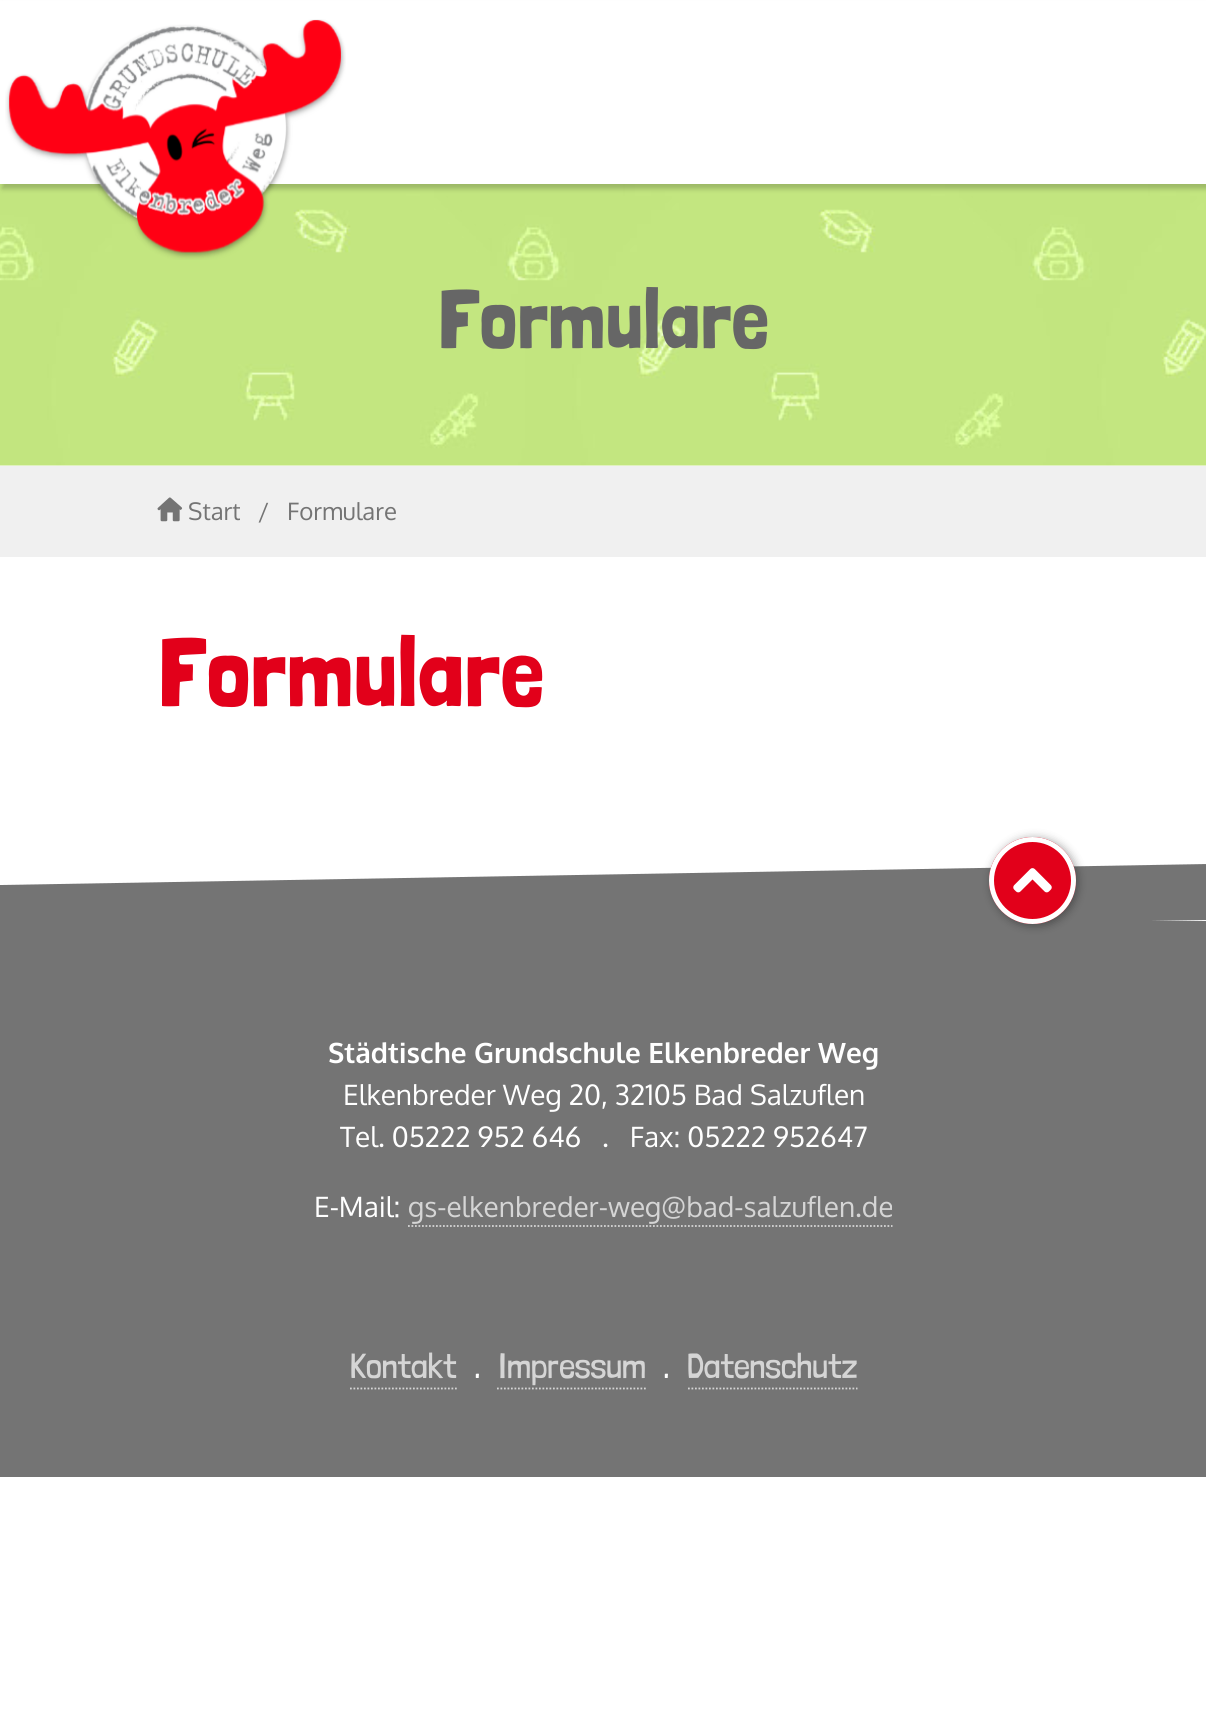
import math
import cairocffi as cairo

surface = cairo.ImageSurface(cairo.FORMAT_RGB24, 1206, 1723)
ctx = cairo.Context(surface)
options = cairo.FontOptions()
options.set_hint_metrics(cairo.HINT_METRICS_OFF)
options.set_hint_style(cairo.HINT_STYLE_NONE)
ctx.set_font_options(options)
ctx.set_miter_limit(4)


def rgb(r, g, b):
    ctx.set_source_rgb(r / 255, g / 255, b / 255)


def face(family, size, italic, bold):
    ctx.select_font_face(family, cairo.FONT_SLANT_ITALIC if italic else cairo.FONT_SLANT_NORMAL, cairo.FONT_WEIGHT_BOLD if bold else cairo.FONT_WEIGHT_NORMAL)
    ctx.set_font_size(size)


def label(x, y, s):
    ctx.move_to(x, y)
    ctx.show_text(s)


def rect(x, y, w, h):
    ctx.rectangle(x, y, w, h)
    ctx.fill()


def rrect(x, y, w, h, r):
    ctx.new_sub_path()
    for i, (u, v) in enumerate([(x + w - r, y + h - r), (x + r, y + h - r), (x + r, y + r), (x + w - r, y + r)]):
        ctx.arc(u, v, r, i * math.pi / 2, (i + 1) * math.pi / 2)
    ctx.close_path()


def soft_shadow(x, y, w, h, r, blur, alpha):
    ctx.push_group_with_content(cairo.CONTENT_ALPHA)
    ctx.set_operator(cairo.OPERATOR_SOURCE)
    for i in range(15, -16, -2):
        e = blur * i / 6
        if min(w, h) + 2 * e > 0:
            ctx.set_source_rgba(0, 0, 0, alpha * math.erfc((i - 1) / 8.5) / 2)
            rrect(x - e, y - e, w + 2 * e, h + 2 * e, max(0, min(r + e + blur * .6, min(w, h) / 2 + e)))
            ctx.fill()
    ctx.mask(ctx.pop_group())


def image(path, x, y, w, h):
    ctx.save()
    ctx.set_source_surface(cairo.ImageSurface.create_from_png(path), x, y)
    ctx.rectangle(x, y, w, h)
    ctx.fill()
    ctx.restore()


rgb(255, 255, 255)
ctx.paint()
image('image1.png', 0, 184, 1206, 282)
rgb(0, 0, 0)
soft_shadow(2, 5, 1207, 184, 0, 2.5, 0.2)
rgb(255, 255, 255)
rect(0, 1, 1206, 183)
image('image0.png', 5, 19, 341, 241)
face('Londrina Solid', 84, 0, 0)
rgb(102, 102, 102)
label(438, 348, 'Formulare')
rgb(240, 240, 240)
rect(0, 466, 1206, 91)
image('image2.png', 157, 497, 26, 25)
face('Oxygen', 24, 0, 0)
rgb(116, 116, 116)
label(188, 520, 'Start')
label(258, 520, '/')
label(287, 520, 'Formulare')
face('Londrina Solid', 98, 0, 0)
rgb(226, 0, 26)
label(158, 706, 'Formulare')
rgb(116, 116, 116)
rect(0, 921, 1206, 556)
ctx.new_path()
ctx.move_to(0, 885)
ctx.line_to(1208, 864)
ctx.line_to(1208, 920)
ctx.line_to(0, 941)
ctx.close_path()
ctx.fill()
face('Oxygen', 28, 0, 1)
rgb(255, 255, 255)
label(328, 1063, 'Städtische Grundschule Elkenbreder Weg')
face('Oxygen', 28, 0, 0)
label(343, 1105, 'Elkenbreder Weg 20, 32105 Bad Salzuflen')
label(340, 1147, 'Tel. 05222 952 646   .   Fax: 05222 952647')
label(314, 1217, 'E-Mail:')
rgb(213, 213, 213)
label(408, 1217, 'gs-elkenbreder-weg@bad-salzuflen.de')
ctx.new_path()
ctx.move_to(408, 1226)
ctx.line_to(892.5, 1226)
ctx.set_line_width(1.8)
ctx.set_dash([1.75, 1.75])
ctx.stroke()
rgb(0, 0, 0)
soft_shadow(991, 838, 87, 88, 43.5, 4.5, 0.35)
rgb(226, 0, 26)
ctx.arc(1032.5, 880.5, 43.5, 0, 2 * math.pi)
ctx.fill()
image('image3.png', 1013, 868, 39, 25)
ctx.arc(1032.5, 880.5, 41, 0, 2 * math.pi)
rgb(255, 255, 255)
ctx.set_line_width(5)
ctx.set_dash([])
ctx.stroke()
face('Londrina Solid Light', 35, 0, 0)
rgb(213, 213, 213)
label(350, 1378, 'Kontakt')
ctx.new_path()
ctx.move_to(350, 1388.5)
ctx.line_to(457, 1388.5)
ctx.set_line_width(1.8)
ctx.set_dash([1.75, 1.75])
ctx.stroke()
rgb(255, 255, 255)
label(474, 1378, '.')
rgb(213, 213, 213)
label(498, 1378, 'Impressum')
ctx.new_path()
ctx.move_to(497, 1388.5)
ctx.line_to(646, 1388.5)
ctx.stroke()
rgb(255, 255, 255)
label(663, 1378, '.')
rgb(213, 213, 213)
label(687, 1378, 'Datenschutz')
ctx.new_path()
ctx.move_to(688, 1388.5)
ctx.line_to(857.5, 1388.5)
ctx.stroke()
surface.write_to_png('render.png')
